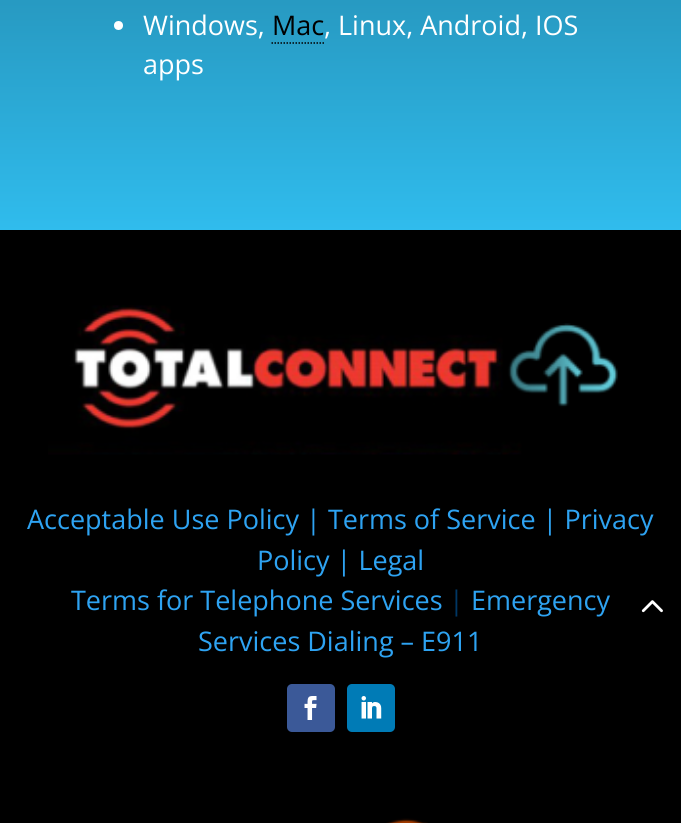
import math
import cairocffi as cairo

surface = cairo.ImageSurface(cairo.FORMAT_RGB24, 681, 823)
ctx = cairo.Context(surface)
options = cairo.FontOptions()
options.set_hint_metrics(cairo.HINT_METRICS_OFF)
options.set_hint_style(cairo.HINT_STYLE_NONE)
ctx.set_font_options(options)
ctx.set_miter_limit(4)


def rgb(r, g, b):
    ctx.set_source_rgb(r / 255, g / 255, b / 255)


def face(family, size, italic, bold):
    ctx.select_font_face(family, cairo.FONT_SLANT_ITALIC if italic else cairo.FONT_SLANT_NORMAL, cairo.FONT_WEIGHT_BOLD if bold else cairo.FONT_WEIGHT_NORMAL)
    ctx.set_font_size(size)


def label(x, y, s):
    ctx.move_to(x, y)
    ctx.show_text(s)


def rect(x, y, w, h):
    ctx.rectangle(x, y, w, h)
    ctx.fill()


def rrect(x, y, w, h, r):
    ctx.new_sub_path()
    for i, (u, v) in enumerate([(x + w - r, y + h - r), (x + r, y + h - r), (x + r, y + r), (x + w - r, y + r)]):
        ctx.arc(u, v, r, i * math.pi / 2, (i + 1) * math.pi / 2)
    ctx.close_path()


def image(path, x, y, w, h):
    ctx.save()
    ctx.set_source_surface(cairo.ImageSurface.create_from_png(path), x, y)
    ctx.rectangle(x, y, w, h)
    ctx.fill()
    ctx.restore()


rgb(255, 255, 255)
ctx.paint()
gradient = cairo.LinearGradient(340, -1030, 341, 230)
gradient.add_color_stop_rgba(0, 0, 0, 0, 1)
gradient.add_color_stop_rgba(1, 0.188, 0.737, 0.929, 1)
ctx.set_source(gradient)
rect(0, 0, 681, 230)
rgb(255, 255, 255)
ctx.arc(118.5, 25.5, 4.5, 0, 2 * math.pi)
ctx.fill()
face('Open Sans', 27, 0, 0)
label(143, 35, 'Windows,')
rgb(0, 0, 0)
label(272, 35, 'Mac')
ctx.new_path()
ctx.move_to(271.5, 43)
ctx.line_to(324, 43)
ctx.set_line_width(1.5)
ctx.set_dash([1.5, 1.5])
ctx.stroke()
rgb(255, 255, 255)
label(324, 35, ', Linux, Android, IOS')
label(143, 74, 'apps')
rgb(0, 0, 0)
rect(0, 230, 681, 593)
image('image0.png', 48, 305, 570, 150)
rgb(46, 163, 242)
label(27, 529, 'Acceptable Use Policy | Terms of Service | Privacy')
label(257, 570, 'Policy | Legal')
label(71, 610, 'Terms for Telephone Services')
rgb(0, 55, 100)
label(449, 610, '|')
rgb(46, 163, 242)
label(471, 610, 'Emergency')
label(198, 651, 'Services Dialing – E911')
rgb(59, 89, 152)
rrect(287, 684, 48, 48, 5)
ctx.fill()
image('image1.png', 304, 696, 13, 24)
rgb(0, 123, 182)
rrect(347, 684, 48, 48, 5)
ctx.fill()
image('image2.png', 361, 696, 21, 23)
image('image3.png', 386, 818, 42, 5)
image('image4.png', 641, 600, 22, 13)
surface.write_to_png('render.png')
